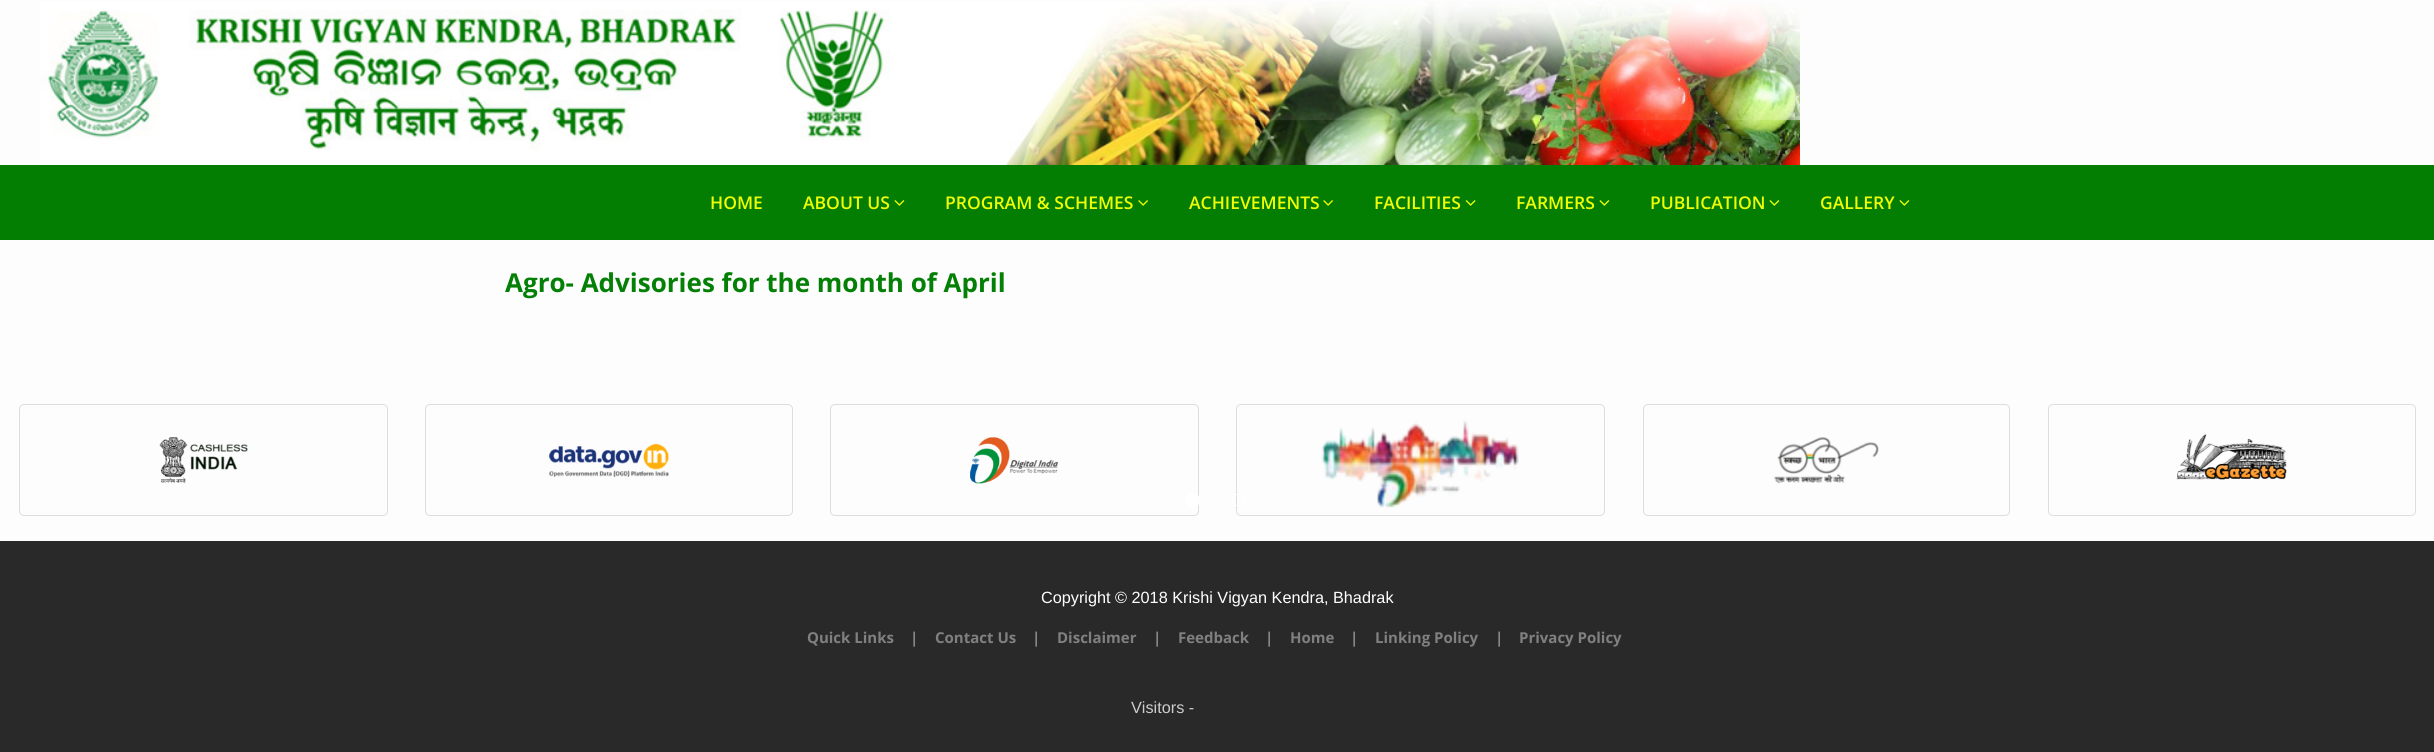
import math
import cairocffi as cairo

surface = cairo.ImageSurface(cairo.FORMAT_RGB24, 2434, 752)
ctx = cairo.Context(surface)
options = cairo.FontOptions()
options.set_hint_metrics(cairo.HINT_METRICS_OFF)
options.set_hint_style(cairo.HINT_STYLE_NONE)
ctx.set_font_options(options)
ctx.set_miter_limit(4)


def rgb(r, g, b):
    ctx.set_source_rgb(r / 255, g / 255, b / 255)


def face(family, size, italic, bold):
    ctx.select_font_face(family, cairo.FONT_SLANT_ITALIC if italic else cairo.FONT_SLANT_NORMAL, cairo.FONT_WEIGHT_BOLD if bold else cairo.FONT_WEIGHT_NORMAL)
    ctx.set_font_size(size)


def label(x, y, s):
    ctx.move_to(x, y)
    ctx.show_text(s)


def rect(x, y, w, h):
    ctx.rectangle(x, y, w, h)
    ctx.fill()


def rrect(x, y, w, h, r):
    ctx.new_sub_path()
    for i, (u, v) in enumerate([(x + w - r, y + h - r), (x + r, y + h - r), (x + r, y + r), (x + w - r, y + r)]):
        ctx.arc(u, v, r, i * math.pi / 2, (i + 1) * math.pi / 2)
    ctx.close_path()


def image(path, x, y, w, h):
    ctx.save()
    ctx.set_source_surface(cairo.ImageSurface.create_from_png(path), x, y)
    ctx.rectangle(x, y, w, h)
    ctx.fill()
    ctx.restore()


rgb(253, 253, 253)
ctx.paint()
image('image0.png', 40, 2, 1760, 163)
rgb(3, 126, 3)
rect(0, 165, 2434, 75)
face('Open Sans SemiBold', 17.5, 0, 0)
rgb(240, 255, 5)
label(710, 209, 'HOME')
label(803, 209, 'ABOUT US')
image('image1.png', 894, 200, 11, 6)
label(945, 209, 'PROGRAM & SCHEMES')
image('image2.png', 1138, 200, 10, 6)
label(1189, 209, 'ACHIEVEMENTS')
image('image2.png', 1323, 200, 10, 6)
label(1374, 209, 'FACILITIES')
image('image3.png', 1465, 200, 11, 6)
label(1516, 209, 'FARMERS')
image('image1.png', 1599, 200, 11, 6)
label(1650, 209, 'PUBLICATION')
image('image1.png', 1769, 200, 11, 6)
label(1820, 209, 'GALLERY')
image('image1.png', 1899, 200, 11, 6)
face('Open Sans', 26, 0, 1)
rgb(4, 128, 6)
label(505, 292, 'Agro- Advisories for the month of April')
rrect(19.5, 404.5, 368, 111, 4.5)
rgb(221, 221, 221)
ctx.set_line_width(1)
ctx.stroke()
image('image4.png', 159, 437, 89, 46)
rrect(425.5, 404.5, 367, 111, 4.5)
ctx.stroke()
image('image5.png', 549, 444, 120, 33)
rrect(830.5, 404.5, 368, 111, 4.5)
ctx.stroke()
image('image6.png', 970, 437, 88, 47)
rrect(1236.5, 404.5, 368, 111, 4.5)
ctx.stroke()
image('image7.png', 1321, 420, 198, 88)
rrect(1643.5, 404.5, 366, 111, 4.5)
ctx.stroke()
image('image8.png', 1774, 437, 105, 47)
rrect(2048.5, 404.5, 367, 111, 4.5)
ctx.stroke()
image('image9.png', 2175, 434, 112, 46)
rgb(255, 255, 255)
ctx.arc(1192.5, 500.5, 7, 0, 2 * math.pi)
ctx.fill_preserve()
ctx.stroke()
rrect(1231.5, 494.5, 12, 11, 5.5)
ctx.stroke()
rgb(41, 41, 41)
rect(0, 541, 2434, 211)
face('Liberation Sans', 16.25, 0, 0)
rgb(255, 255, 255)
label(1041, 603, 'Copyright © 2018 Krishi Vigyan Kendra, Bhadrak')
face('Open Sans', 15, 0, 1)
rgb(128, 128, 128)
label(807, 643, 'Quick Links')
face('Open Sans', 15, 0, 0)
rgb(192, 192, 192)
label(910, 643, '|')
face('Open Sans', 15, 0, 1)
rgb(128, 128, 128)
label(935, 643, 'Contact Us')
face('Open Sans', 15, 0, 0)
rgb(192, 192, 192)
label(1032, 643, '|')
face('Open Sans', 15, 0, 1)
rgb(128, 128, 128)
label(1057, 643, 'Disclaimer')
face('Open Sans', 15, 0, 0)
rgb(192, 192, 192)
label(1153, 643, '|')
face('Open Sans', 15, 0, 1)
rgb(128, 128, 128)
label(1178, 643, 'Feedback')
face('Open Sans', 15, 0, 0)
rgb(192, 192, 192)
label(1265, 643, '|')
face('Open Sans', 15, 0, 1)
rgb(128, 128, 128)
label(1290, 643, 'Home')
face('Open Sans', 15, 0, 0)
rgb(192, 192, 192)
label(1350, 643, '|')
face('Open Sans', 15, 0, 1)
rgb(128, 128, 128)
label(1375, 643, 'Linking Policy')
face('Open Sans', 15, 0, 0)
rgb(192, 192, 192)
label(1495, 643, '|')
face('Open Sans', 15, 0, 1)
rgb(128, 128, 128)
label(1519, 643, 'Privacy Policy')
face('Liberation Sans', 16.25, 0, 0)
rgb(204, 204, 204)
label(1131, 713, 'Visitors -')
surface.write_to_png('render.png')
